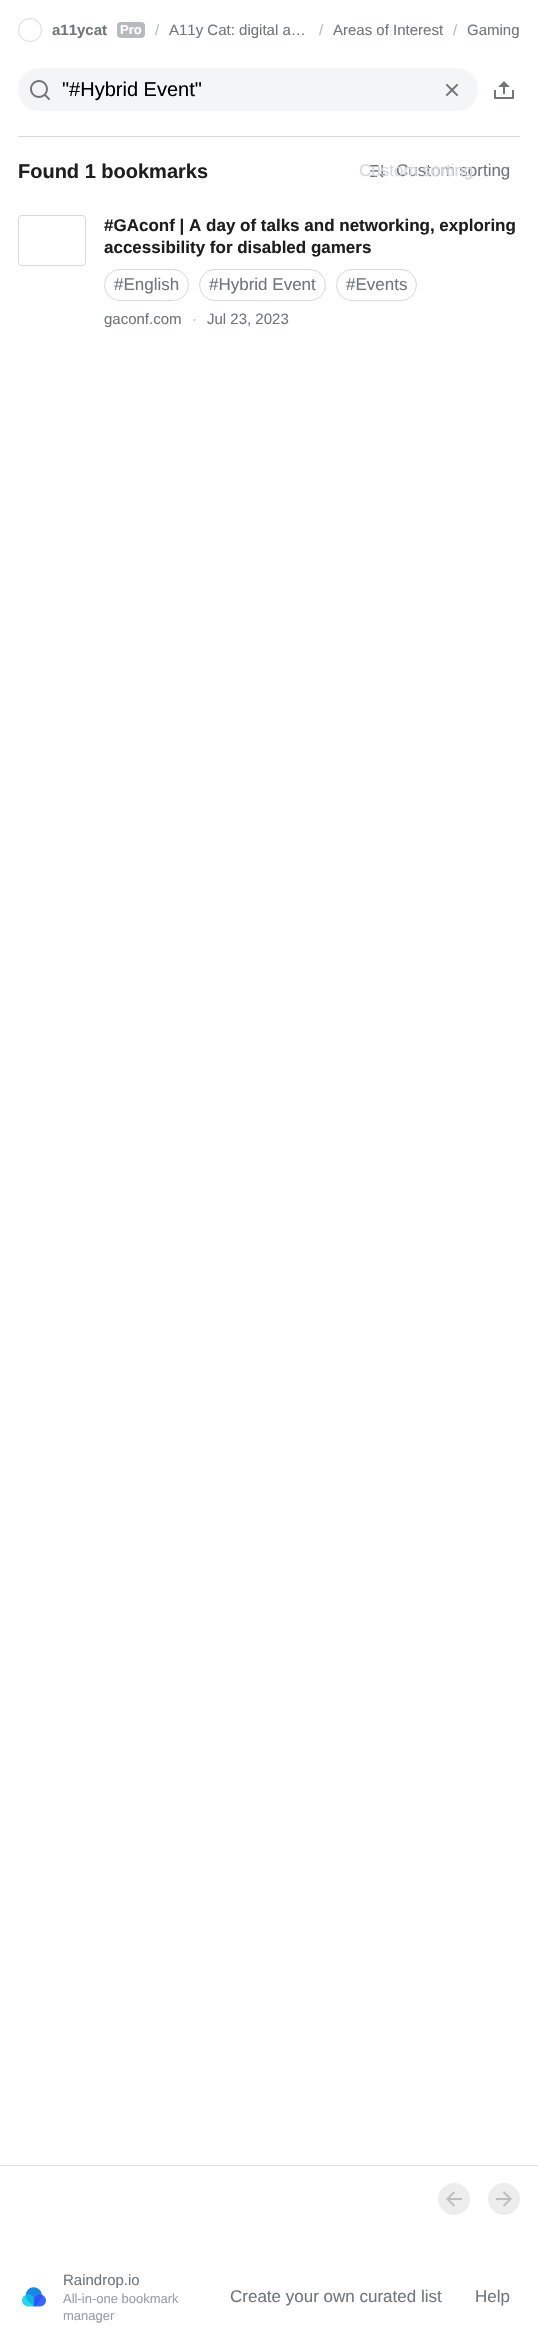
void draw(SkCanvas* c) {
SkPaint p;
p.setAntiAlias(true);
auto F=[&](const char* family, int weight, float size, bool italic = false){SkFontStyle style(weight, SkFontStyle::kNormal_Width,italic ? SkFontStyle::kItalic_Slant : SkFontStyle::kUpright_Slant);SkFont result(fontMgr->matchFamilyStyle(family, style), size);result.setSubpixel(true);return result;};
auto T=[&](const char* s, float x, float y, const SkFont& font){c->drawString(s, x, y, font, p);};
auto R=[&](float x, float y, float w, float h){c->drawRect(SkRect::MakeXYWH(x, y, w, h), p);};
auto Q=[&](float x, float y, float w, float h, float radius){c->drawRoundRect(SkRect::MakeXYWH(x, y, w, h), radius, radius, p);};
auto I=[&](const char* path, float x, float y, float w, float h){auto image = SkImages::DeferredFromEncodedData(SkData::MakeFromFileName(path));c->drawImageRect(image, SkRect::MakeXYWH(x, y, w, h), SkSamplingOptions());};
c->clear(0xffffffff);
p.setStroke(true);
p.setStrokeWidth(1);
p.setColor(0xffd9d9d9);
c->drawCircle(30,30,11.5,p);
auto f1 = F("Liberation Sans",700,15);
p.setStroke(false);
p.setColor(0xff70767a);
T("a11ycat",52,35,f1);
p.setColor(0xffb8bbbd);
Q(117,22,28,16,4);
auto f2 = F("Liberation Sans",700,13);
p.setColor(0xffffffff);
T("Pro",120,34,f2);
auto f3 = F("Liberation Sans",400,15);
p.setColor(0xffb8bbbd);
T("/",155,35,f3);
p.setColor(0xff70767a);
T("A11y Cat: digital a…",169,35,f3);
p.setColor(0xffb8bbbd);
T("/",319,35,f3);
p.setColor(0xff70767a);
T("Areas of Interest",333,35,f3);
p.setColor(0xffb8bbbd);
T("/",453,35,f3);
p.setColor(0xff70767a);
T("Gaming",467,35,f3);
p.setColor(0xfff3f5f6);
Q(18,68,460,43,21.5);
I("1.png",30,80,21,21);
auto f4 = F("Liberation Sans",400,20);
p.setColor(0xff000000);
T("\"#Hybrid Event\"",62,96,f4);
I("2.png",445,83,14,14);
I("3.png",494,81,20,18);
p.setColor(0xffd9d9d9);
R(18,136,502,1);
auto f5 = F("Liberation Sans",700,20);
p.setColor(0xff1e1e1e);
T("Found 1 bookmarks",18,178,f5);
I("4.png",370,165,16,13);
auto f6 = F("Liberation Sans",400,17);
p.setColor(0xff70767a);
T("Custom sorting",396,176,f6);
p.setColor(0xffd6d8d9);
T("Custom sorting",359,176,f6);
p.setStroke(true);
p.setColor(0xffd9d9d9);
c->drawRoundRect(SkRect::MakeXYWH(18.5,215.5,67,50),3.5,3.5,p);
auto f7 = F("Liberation Sans",700,17);
p.setStroke(false);
p.setColor(0xff1e1e1e);
T("#GAconf | A day of talks and networking, exploring",104,231,f7);
T("accessibility for disabled gamers",104,253,f7);
p.setStroke(true);
p.setColor(0xffd9d9d9);
c->drawRoundRect(SkRect::MakeXYWH(104.5,269.5,84,31),15.5,15.5,p);
p.setStroke(false);
p.setColor(0xff70767a);
T("#English",114,290,f6);
p.setStroke(true);
p.setColor(0xffd9d9d9);
c->drawRoundRect(SkRect::MakeXYWH(199.5,269.5,126,31),15.5,15.5,p);
p.setStroke(false);
p.setColor(0xff70767a);
T("#Hybrid Event",209,290,f6);
p.setStroke(true);
p.setColor(0xffd9d9d9);
c->drawRoundRect(SkRect::MakeXYWH(336.5,269.5,80,31),15.5,15.5,p);
p.setStroke(false);
p.setColor(0xff70767a);
T("#Events",346,290,f6);
T("gaconf.com",104,324,f3);
p.setColor(0xffb8bbbd);
T("·",192,324,f3);
p.setColor(0xff70767a);
T("Jul 23, 2023",207,324,f3);
p.setColor(0xffdedede);
R(0,2165,538,1);
p.setColor(0xffededed);
c->drawCircle(454,2199,16,p);
I("5.png",446,2191,16,16);
c->drawCircle(504,2199,16,p);
I("6.png",496,2191,16,16);
I("7.png",22,2287,24,20);
p.setColor(0xff70767a);
T("Raindrop.io",63,2285,f3);
auto f8 = F("Liberation Sans",400,13);
p.setColor(0xff9b9fa2);
T("All-in-one bookmark",63,2303,f8);
T("manager",63,2320,f8);
p.setColor(0xff70767a);
T("Create your own curated list",230,2302,f6);
T("Help",475,2302,f6);
}
